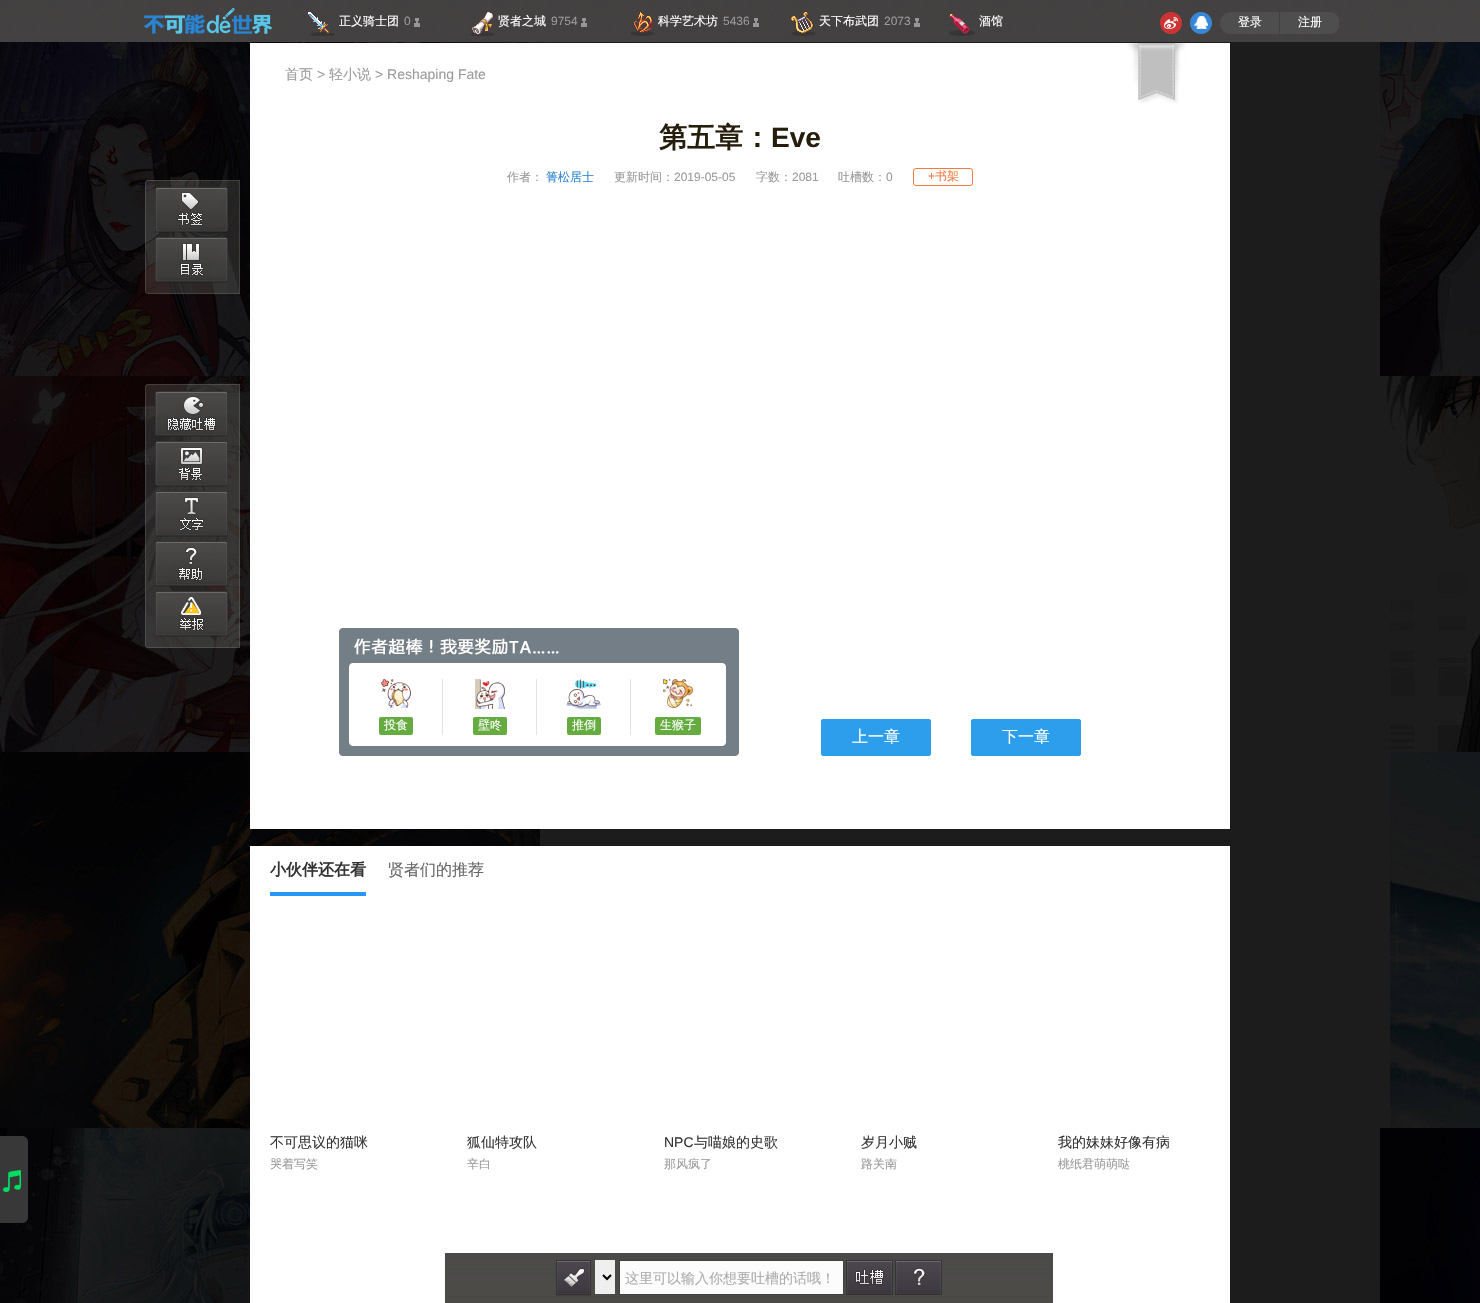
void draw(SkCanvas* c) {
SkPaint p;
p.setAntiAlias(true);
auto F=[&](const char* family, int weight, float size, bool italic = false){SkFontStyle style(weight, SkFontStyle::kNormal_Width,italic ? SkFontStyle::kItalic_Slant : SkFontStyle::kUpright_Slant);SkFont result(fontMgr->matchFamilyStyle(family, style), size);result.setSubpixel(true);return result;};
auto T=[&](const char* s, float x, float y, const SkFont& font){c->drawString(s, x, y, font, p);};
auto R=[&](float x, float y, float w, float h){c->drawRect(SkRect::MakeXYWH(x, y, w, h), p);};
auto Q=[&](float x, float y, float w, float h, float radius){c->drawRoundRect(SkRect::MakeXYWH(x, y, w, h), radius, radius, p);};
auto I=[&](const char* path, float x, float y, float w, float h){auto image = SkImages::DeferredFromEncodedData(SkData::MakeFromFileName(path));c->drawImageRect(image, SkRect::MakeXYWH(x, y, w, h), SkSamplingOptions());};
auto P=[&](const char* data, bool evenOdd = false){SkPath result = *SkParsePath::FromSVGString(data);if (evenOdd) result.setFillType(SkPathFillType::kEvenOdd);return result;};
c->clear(0xffffffff);
I("1.png",0,0,1480,42);
I("2.png",144,8,128,26);
I("3.png",307,11,28,25);
auto f1 = F("WenQuanYi Zen Hei",500,12);
p.setColor(0xffffffff);
T("正义骑士团",339,25,f1);
auto f2 = F("Liberation Sans",400,12);
p.setColor(0xff9a9a9a);
T("0",404,25,f2);
I("4.png",414,18,6,9);
I("5.png",470,11,24,25);
p.setColor(0xffffffff);
T("贤者之城",498,25,f1);
p.setColor(0xff9a9a9a);
T("9754",551,25,f2);
I("6.png",581,18,6,9);
I("7.png",630,11,24,25);
p.setColor(0xffffffff);
T("科学艺术坊",658,25,f1);
p.setColor(0xff9a9a9a);
T("5436",723,25,f2);
I("8.png",753,18,6,9);
I("9.png",790,11,25,25);
p.setColor(0xffffffff);
T("天下布武团",819,25,f1);
p.setColor(0xff9a9a9a);
T("2073",884,25,f2);
I("4.png",914,18,6,9);
I("10.png",949,13,26,23);
p.setColor(0xffffffff);
T("酒馆",979,25,f1);
I("11.png",1160,12,22,22);
I("12.png",1190,12,22,22);
p.setColor(0xff4e4e4e);
Q(1220,12,120,22,11);
p.setColor(0xff414141);
R(1279,12,1,22);
p.setColor(0xffffffff);
T("登录",1238,26,f1);
c->save();
c->clipPath(P("M1231 12h98c6 0 11 5 11 11c0 6-5 11-11 11h-98c-6 0-11-5-11-11c0-6 5-11 11-11z"),true);
p.setColor(0xff414141);
R(1339,12,1,22);
c->restore();
p.setColor(0xffffffff);
T("注册",1298,26,f1);
I("27.png",0,42,1480,1261);
p.setColor(0x1fffffed);
c->drawPath(P("M148 180h92v114h-92c-1.5 0-3-1.5-3-3v-108c0-1.5 1.5-3 3-3z"),p);
p.setStroke(true);
p.setStrokeWidth(1);
p.setColor(0x1fffffff);
c->drawPath(P("M148 180.5h91.5v113h-91.5c-1.5 0-2.5-1-2.5-2.5v-108c0-1.5 1-2.5 2.5-2.5z"),p);
I("13.png",155,187,73,46);
I("14.png",177,192,26,34);
I("15.png",155,237,73,46);
I("16.png",180,243,24,33);
p.setStroke(false);
p.setColor(0x1fffffed);
c->drawPath(P("M148 384h92v264h-92c-1.5 0-3-1.5-3-3v-258c0-1.5 1.5-3 3-3z"),p);
p.setStroke(true);
p.setColor(0x1fffffff);
c->drawPath(P("M148 384.5h91.5v263h-91.5c-1.5 0-2.5-1-2.5-2.5v-258c0-1.5 1-2.5 2.5-2.5z"),p);
I("17.png",155,391,73,46);
I("18.png",167,396,49,35);
I("19.png",155,441,73,46);
I("20.png",178,447,25,34);
I("21.png",155,491,73,46);
I("22.png",179,497,25,34);
I("23.png",155,541,73,46);
I("24.png",178,547,25,34);
I("25.png",155,591,73,46);
I("26.png",179,597,25,34);
p.setStroke(false);
p.setColor(0xffffffff);
R(250,43,980,786);
auto f3 = F("WenQuanYi Zen Hei",500,14);
p.setColor(0xff9a9a9a);
T("首页",285,79,f3);
auto f4 = F("Liberation Sans",400,14);
T(">",317,79,f4);
T("轻小说",329,79,f3);
T("> Reshaping Fate",375,79,f4);
auto f5 = F("WenQuanYi Zen Hei",700,28);
p.setColor(0xff261d0d);
T("第五章：",659,147,f5);
auto f6 = F("Liberation Sans",700,28);
T("Eve",771,147,f6);
p.setColor(0xff9a9a9a);
T("作者：",507,181,f1);
p.setColor(0xff2984d0);
T("箐松居士",546,181,f1);
p.setColor(0xff9a9a9a);
T("更新时间：",614,181,f1);
T("2019-05-05",674,181,f2);
T("字数：",756,181,f1);
T("2081",792,181,f2);
T("吐槽数：",838,181,f1);
T("0",886,181,f2);
p.setStroke(true);
p.setColor(0xfff47b40);
c->drawRoundRect(SkRect::MakeXYWH(913.5,168.5,59,17),2.5,2.5,p);
p.setStroke(false);
T("+",928,180,f2);
T("书架",935,180,f1);
I("28.png",1127,43,59,60);
I("29.png",339,628,400,128);
p.setColor(0xffe3e3e3);
R(442,679,1,56);
I("30.png",381,679,30,29);
p.setColor(0xff65ab3f);
Q(379,717,34,18,2);
p.setColor(0xffffffff);
T("投食",384,729,f1);
p.setColor(0xffe3e3e3);
R(536,679,1,56);
I("31.png",475,679,30,30);
p.setColor(0xff65ab3f);
Q(473,717,34,18,2);
p.setColor(0xffffffff);
T("壁咚",478,729,f1);
p.setColor(0xffe3e3e3);
R(630,679,1,56);
I("32.png",566,679,35,30);
p.setColor(0xff65ab3f);
Q(567,717,34,18,2);
p.setColor(0xffffffff);
T("推倒",572,729,f1);
I("33.png",663,679,30,29);
p.setColor(0xff65ab3f);
Q(655,717,46,18,2);
p.setColor(0xffffffff);
T("生猴子",660,729,f1);
I("34.png",821,719,110,37);
p.setColor(0xff2d9eec);
Q(821,719,110,37,3);
auto f7 = F("WenQuanYi Zen Hei",500,16);
p.setColor(0xffffffff);
T("上一章",852,742,f7);
I("34.png",971,719,110,37);
p.setColor(0xff2d9eec);
Q(971,719,110,37,3);
p.setColor(0xffffffff);
T("下一章",1002,742,f7);
R(250,846,980,457);
auto f8 = F("WenQuanYi Zen Hei",700,16);
p.setColor(0xff333333);
T("小伙伴还在看",270,875,f8);
p.setColor(0xff2797f7);
R(270,892,96,4);
p.setColor(0xff666666);
T("贤者们的推荐",388,875,f7);
p.setColor(0xff333333);
T("不可思议的猫咪",270,1147,f3);
p.setColor(0xff9a9a9a);
T("哭着写笑",270,1168,f1);
p.setColor(0xff333333);
T("狐仙特攻队",467,1147,f3);
p.setColor(0xff9a9a9a);
T("辛白",467,1168,f1);
p.setColor(0xff333333);
T("NPC",664,1147,f4);
T("与喵娘的史歌",694,1147,f3);
p.setColor(0xff9a9a9a);
T("那风疯了",664,1168,f1);
p.setColor(0xff333333);
T("岁月小贼",861,1147,f3);
p.setColor(0xff9a9a9a);
T("路关南",861,1168,f1);
p.setColor(0xff333333);
T("我的妹妹好像有病",1058,1147,f3);
p.setColor(0xff9a9a9a);
T("桃纸君萌萌哒",1058,1168,f1);
I("35.png",0,1136,28,87);
I("36.png",3,1170,18,22);
I("37.png",445,1253,608,50);
I("38.png",556,1260,35,36);
I("39.png",563,1268,22,20);
p.setColor(0xffefefef);
R(595,1260,20,34);
p.setStroke(true);
p.setStrokeWidth(2);
p.setColor(0xff000000);
c->drawPath(P("M603 1275l4 4l4-4"),p);
p.setStroke(false);
p.setColor(0xfffcfcfc);
c->drawRect(SkRect::MakeXYWH(619.5,1260.5,224,34),p);
p.setStroke(true);
p.setStrokeWidth(1);
p.setColor(0xff404040);
c->drawRect(SkRect::MakeXYWH(619.5,1260.5,224,34),p);
p.setStroke(false);
p.setColor(0xffadacac);
T("这里可以输入你想要吐槽的话哦！",625,1283,f3);
I("40.png",846,1260,47,35);
I("41.png",895,1260,47,35);
}
